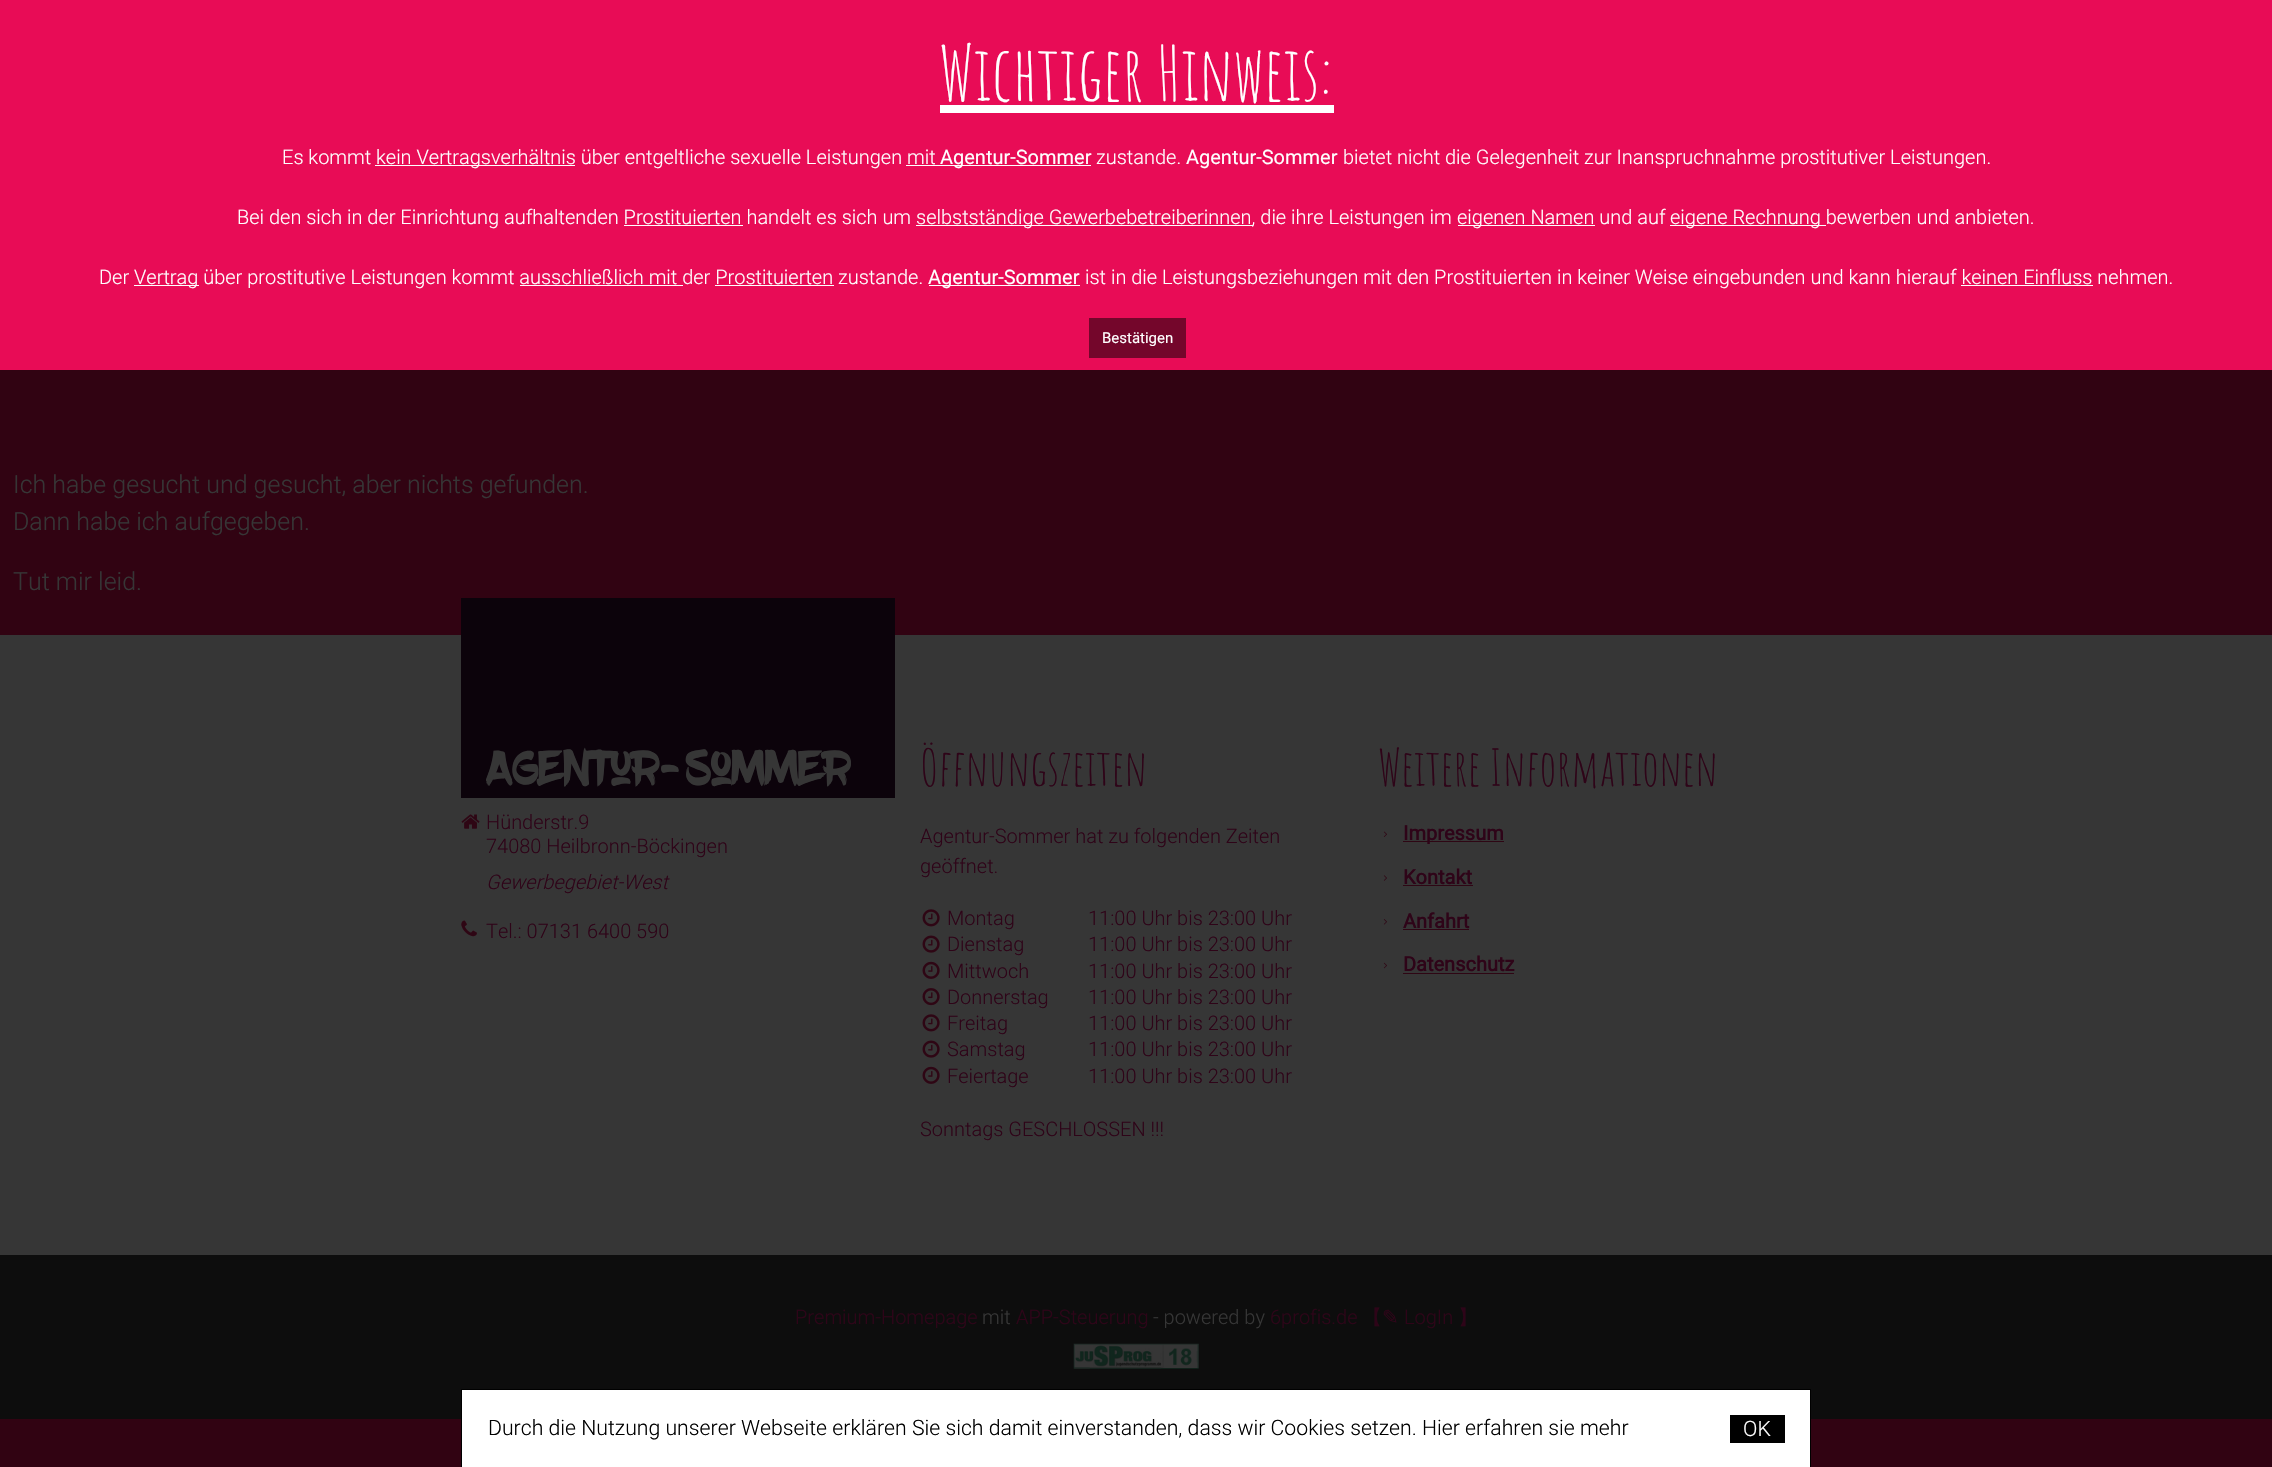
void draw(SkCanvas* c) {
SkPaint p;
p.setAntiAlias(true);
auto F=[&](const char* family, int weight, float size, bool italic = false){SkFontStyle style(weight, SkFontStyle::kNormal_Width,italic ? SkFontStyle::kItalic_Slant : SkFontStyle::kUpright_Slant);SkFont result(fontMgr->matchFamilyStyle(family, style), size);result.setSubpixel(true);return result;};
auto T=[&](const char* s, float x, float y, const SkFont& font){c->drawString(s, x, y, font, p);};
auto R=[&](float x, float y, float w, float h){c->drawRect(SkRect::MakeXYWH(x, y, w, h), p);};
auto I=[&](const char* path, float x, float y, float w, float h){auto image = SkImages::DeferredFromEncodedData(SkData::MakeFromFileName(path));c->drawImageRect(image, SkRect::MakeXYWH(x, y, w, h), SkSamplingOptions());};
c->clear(0xff310312);
p.setColor(0xffe80c56);
R(0,0,2272,370);
auto f1 = F("Amatic SC",400,75);
p.setColor(0xffffffff);
T("Wichtiger Hinweis:",939,101,f1);
R(940,105,394,8);
auto f2 = F("Roboto",300,20);
T("Es kommt",282,164,f2);
R(375,165,200,1);
T("kein Vertragsverhältnis über entgeltliche sexuelle Leistungen mit",376,164,f2);
R(906,165,185,1);
auto f3 = F("Roboto",400,20);
T("Agentur-Sommer",940,164,f3);
T("zustande.",1096,164,f2);
T("Agentur-Sommer",1186,164,f3);
T("bietet nicht die Gelegenheit zur Inanspruchnahme prostitutiver Leistungen.",1343,164,f2);
T("Bei den sich in der Einrichtung aufhaltenden Prostituierten handelt es sich um",237,224,f2);
R(916,225,337,1);
T("selbstständige Gewerbebetreiberinnen, die ihre Leistungen im",916,224,f2);
R(1458,225,137,1);
T("eigenen Namen und auf",1457,224,f2);
R(1670,225,156,1);
T("eigene Rechnung bewerben und anbieten.",1670,224,f2);
R(624,225,119,1);
T("Der",99,284,f2);
R(134,285,65,1);
T("Vertrag über prostitutive Leistungen kommt ausschließlich mit der Prostituierten zustande.",134,284,f2);
R(929,285,151,1);
T("Agentur-Sommer",928,284,f3);
T("ist in die Leistungsbeziehungen mit den Prostituierten in keiner Weise eingebunden und kann hierauf keinen Einfluss nehmen.",1085,284,f2);
R(520,285,163,1);
R(715,285,119,1);
R(1961,285,132,1);
p.setColor(0xff74062b);
R(1089,318,97,40);
auto f4 = F("Roboto",400,15);
p.setColor(0xffffffff);
T("Bestätigen",1102,343,f4);
auto f5 = F("Roboto",300,25);
p.setColor(0xff363636);
T("Ich habe gesucht und gesucht, aber nichts gefunden.",13,493,f5);
T("Dann habe ich aufgegeben.",13,530,f5);
T("Tut mir leid.",13,590,f5);
R(0,635,2272,620);
p.setColor(0xff0c030b);
R(461,598,434,200);
auto f6 = F("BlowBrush",400,50);
p.setColor(0xff363636);
T("Agentur-Sommer",486,785,f6);
I("1.png",461,814,19,15);
p.setColor(0xff2e0418);
T("Hünderstr.9",486,829,f2);
T("74080 Heilbronn-Böckingen",486,853,f2);
auto f7 = F("Roboto",300,20,true);
T("Gewerbegebiet-West",486,889,f7);
I("2.png",461,920,16,17);
T("Tel.: 07131 6400 590",486,938,f2);
auto f8 = F("Amatic SC",400,50);
T("Öffnungszeiten",920,786,f8);
T("Agentur-Sommer hat zu folgenden Zeiten",920,843,f2);
T("geöffnet.",920,873,f2);
I("3.png",922,909,18,18);
T("Montag",947,925,f2);
T("11:00 Uhr bis 23:00 Uhr",1088,925,f2);
I("4.png",922,935,18,18);
T("Dienstag",947,951,f2);
T("11:00 Uhr bis 23:00 Uhr",1088,951,f2);
I("5.png",922,961,18,18);
T("Mittwoch",947,978,f2);
T("11:00 Uhr bis 23:00 Uhr",1088,978,f2);
I("6.png",922,988,18,18);
T("Donnerstag",947,1004,f2);
T("11:00 Uhr bis 23:00 Uhr",1088,1004,f2);
I("3.png",922,1014,18,18);
T("Freitag",947,1030,f2);
T("11:00 Uhr bis 23:00 Uhr",1088,1030,f2);
I("4.png",922,1040,18,18);
T("Samstag",947,1056,f2);
T("11:00 Uhr bis 23:00 Uhr",1088,1056,f2);
I("5.png",922,1066,18,18);
T("Feiertage",947,1083,f2);
T("11:00 Uhr bis 23:00 Uhr",1088,1083,f2);
T("Sonntags GESCHLOSSEN !!!",920,1136,f2);
T("Weitere Informationen",1378,786,f8);
I("7.png",1383,831,4,6);
p.setColor(0xff2e0614);
R(1403,841,101,1);
auto f9 = F("Roboto",700,20);
p.setColor(0xff2e0418);
T("Impressum",1403,840,f9);
I("8.png",1383,875,4,6);
T("Kontakt",1403,884,f9);
p.setColor(0xff2e0614);
R(1403,885,70,1);
I("9.png",1383,919,4,6);
p.setColor(0xff2e0418);
T("Anfahrt",1403,928,f9);
p.setColor(0xff2e0614);
R(1403,929,66,1);
I("10.png",1383,962,4,7);
p.setColor(0xff2e0418);
T("Datenschutz",1403,971,f9);
p.setColor(0xff2e0614);
R(1403,973,111,1);
p.setColor(0xff0d0d0d);
R(0,1255,2272,164);
p.setColor(0xff2e0418);
T("Premium-Homepage",795,1324,f2);
p.setColor(0xff363636);
T("mit",982,1324,f2);
p.setColor(0xff2e0418);
T("APP-Steuerung",1016,1324,f2);
p.setColor(0xff363636);
T("- powered by",1153,1324,f2);
p.setColor(0xff2e0418);
T("6profis.de",1270,1324,f2);
auto f10 = F("WenQuanYi Zen Hei",500,20);
T("【",1362,1324,f10);
auto f11 = F("DejaVu Sans",400,20);
T("✎",1382,1324,f11);
T("LogIn",1404,1324,f2);
T("】",1458,1324,f10);
I("11.png",1073,1343,126,26);
p.setColor(0xffffffff);
R(462,1390,1348,77);
p.setColor(0xff000000);
R(461,1389,1350,1);
R(1810,1389,1,78);
R(461,1389,1,78);
auto f12 = F("Roboto",300,21.25);
T("Durch die Nutzung unserer Webseite erklären Sie sich damit einverstanden, dass wir Cookies setzen. Hier erfahren sie mehr",488,1435,f12);
R(1730,1415,55,28);
p.setColor(0xffffffff);
T("OK",1743,1436,f12);
}
